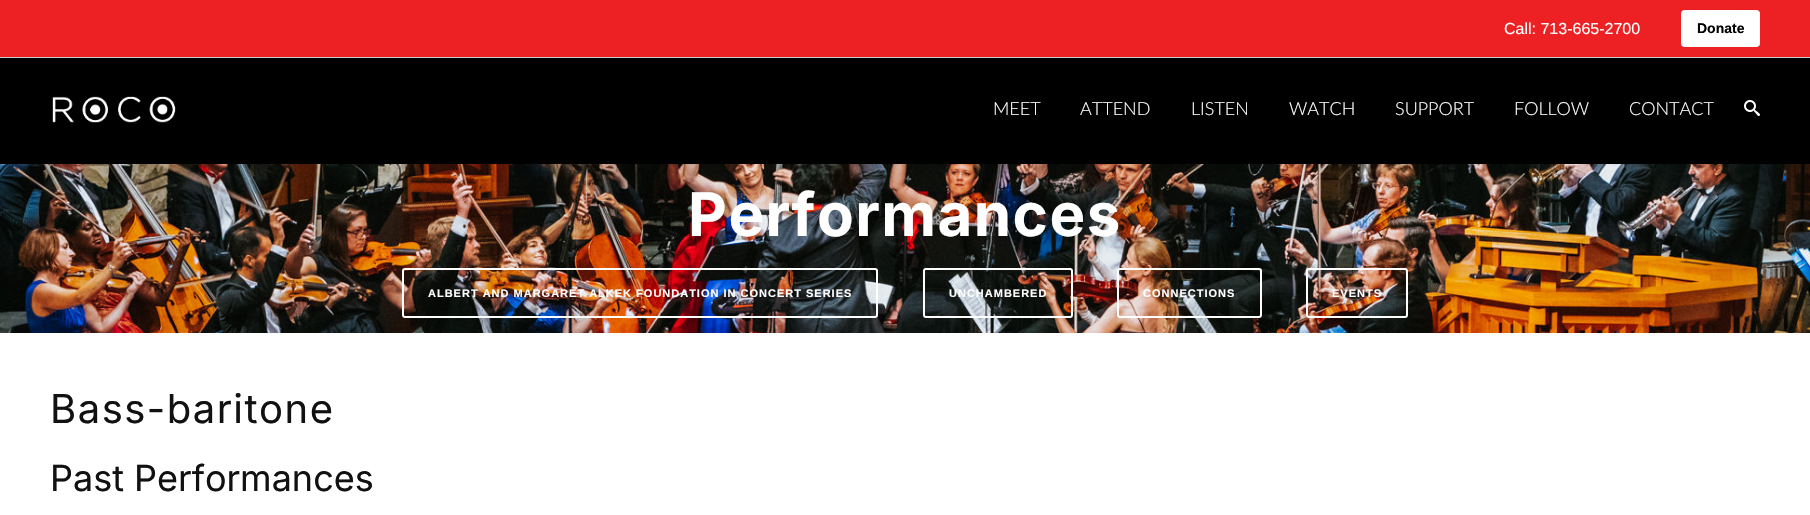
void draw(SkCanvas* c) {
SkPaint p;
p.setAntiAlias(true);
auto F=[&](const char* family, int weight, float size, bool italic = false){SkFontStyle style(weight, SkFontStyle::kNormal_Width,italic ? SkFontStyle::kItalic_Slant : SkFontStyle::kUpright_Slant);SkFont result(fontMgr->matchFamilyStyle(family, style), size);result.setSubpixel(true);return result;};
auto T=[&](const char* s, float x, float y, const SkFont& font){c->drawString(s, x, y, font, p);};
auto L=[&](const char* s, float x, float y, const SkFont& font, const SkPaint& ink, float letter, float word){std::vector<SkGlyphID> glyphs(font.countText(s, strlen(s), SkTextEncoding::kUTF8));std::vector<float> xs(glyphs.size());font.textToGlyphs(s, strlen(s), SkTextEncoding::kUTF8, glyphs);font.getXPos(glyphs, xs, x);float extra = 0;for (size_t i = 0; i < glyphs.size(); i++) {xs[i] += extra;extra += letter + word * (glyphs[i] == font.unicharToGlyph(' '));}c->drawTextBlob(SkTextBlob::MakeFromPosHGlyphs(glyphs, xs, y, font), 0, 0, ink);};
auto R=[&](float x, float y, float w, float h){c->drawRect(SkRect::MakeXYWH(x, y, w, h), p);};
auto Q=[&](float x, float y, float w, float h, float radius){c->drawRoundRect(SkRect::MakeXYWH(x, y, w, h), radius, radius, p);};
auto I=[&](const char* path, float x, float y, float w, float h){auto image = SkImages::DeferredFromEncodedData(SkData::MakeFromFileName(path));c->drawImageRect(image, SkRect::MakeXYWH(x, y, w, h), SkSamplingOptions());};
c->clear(0xffffffff);
p.setColor(0xffed2124);
R(0,0,1810,57);
p.setColor(0xffcccccc);
R(0,57,1810,1);
auto f1 = F("Liberation Sans",400,16);
p.setColor(0xffffffff);
T("Call: 713-665-2700",1504,34,f1);
Q(1681,10,79,37,4);
auto f2 = F("Liberation Sans",700,14);
p.setColor(0xff000000);
T("Donate",1697,33,f2);
R(0,58,1810,106);
I("1.png",52,96,124,27);
auto f3 = F("Lato",300,18);
p.setColor(0xffffffff);
T("MEET",993,115,f3);
T("ATTEND",1080,115,f3);
T("LISTEN",1191,115,f3);
T("WATCH",1289,115,f3);
T("SUPPORT",1395,115,f3);
T("FOLLOW",1514,115,f3);
T("CONTACT",1629,115,f3);
I("2.png",1744,100,16,16);
I("3.png",0,164,1810,169);
auto f4 = F("Inter",700,60);
L("Performances",688,236,f4,p,1.5,0);
p.setStroke(true);
p.setStrokeWidth(2);
c->drawRoundRect(SkRect::MakeXYWH(403,269,474,48),2,2,p);
auto f5 = F("Liberation Sans",700,11);
p.setStroke(false);
L("ALBERT AND MARGARET ALKEK FOUNDATION IN CONCERT SERIES",428,297,f5,p,1,0);
p.setStroke(true);
c->drawRoundRect(SkRect::MakeXYWH(924,269,148,48),2,2,p);
p.setStroke(false);
L("UNCHAMBERED",949,297,f5,p,1,0);
p.setStroke(true);
c->drawRoundRect(SkRect::MakeXYWH(1118,269,143,48),2,2,p);
p.setStroke(false);
L("CONNECTIONS",1143,297,f5,p,1,0);
p.setStroke(true);
c->drawRoundRect(SkRect::MakeXYWH(1307,269,100,48),2,2,p);
p.setStroke(false);
L("EVENTS",1332,297,f5,p,1,0);
auto f6 = F("Inter",400,40);
p.setColor(0xff111111);
L("Bass-baritone",50,423,f6,p,1.5,0);
auto f7 = F("Inter",400,36);
T("Past Performances",50,491,f7);
}
